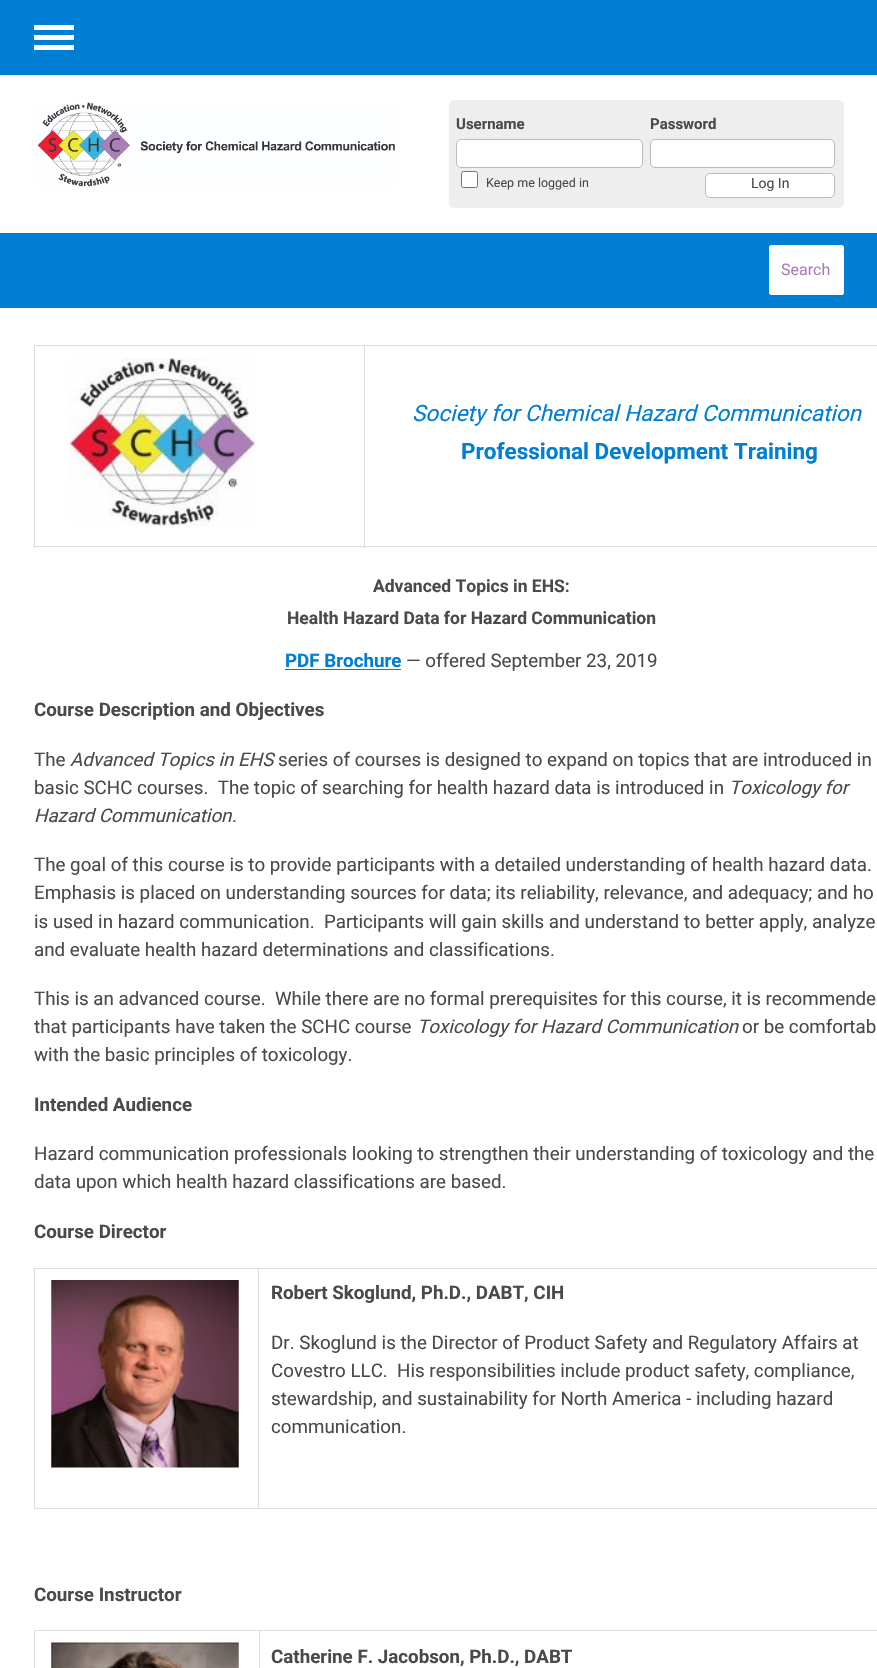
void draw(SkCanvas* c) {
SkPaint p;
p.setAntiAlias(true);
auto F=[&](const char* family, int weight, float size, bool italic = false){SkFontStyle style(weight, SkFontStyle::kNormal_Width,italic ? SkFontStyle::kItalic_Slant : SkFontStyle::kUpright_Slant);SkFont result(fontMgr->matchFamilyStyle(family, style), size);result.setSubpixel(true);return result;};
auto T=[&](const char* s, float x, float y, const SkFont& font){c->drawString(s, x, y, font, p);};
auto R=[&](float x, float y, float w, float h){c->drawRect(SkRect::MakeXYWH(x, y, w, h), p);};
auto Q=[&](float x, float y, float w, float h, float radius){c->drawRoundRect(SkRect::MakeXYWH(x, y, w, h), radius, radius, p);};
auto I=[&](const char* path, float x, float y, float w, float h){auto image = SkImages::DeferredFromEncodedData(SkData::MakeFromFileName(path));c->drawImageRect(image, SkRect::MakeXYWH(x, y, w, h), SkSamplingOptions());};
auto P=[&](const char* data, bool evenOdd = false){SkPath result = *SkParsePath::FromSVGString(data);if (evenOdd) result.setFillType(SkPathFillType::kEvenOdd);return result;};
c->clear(0xffffffff);
p.setColor(0xff007ed4);
R(0,0,877,75);
p.setColor(0xffffffff);
c->drawPath(P("M34 25h40v5h-40zm0 10h40v5h-40zm0 10h40v5h-40z"),p);
I("1.png",37,102,358,85);
p.setColor(0xffeeeeee);
Q(449,100,395,108,5);
auto f1 = F("Roboto",700,15);
p.setColor(0xff4a4a4a);
T("Username",456,129,f1);
p.setColor(0xffffffff);
c->drawRoundRect(SkRect::MakeXYWH(456.5,139.5,186,28),4.5,4.5,p);
p.setStroke(true);
p.setStrokeWidth(1);
p.setColor(0xffbbbbbb);
c->drawRoundRect(SkRect::MakeXYWH(456.5,139.5,186,28),4.5,4.5,p);
p.setStroke(false);
p.setColor(0xff4a4a4a);
T("Password",650,129,f1);
p.setColor(0xffffffff);
c->drawRoundRect(SkRect::MakeXYWH(650.5,139.5,184,28),4.5,4.5,p);
p.setStroke(true);
p.setColor(0xffbbbbbb);
c->drawRoundRect(SkRect::MakeXYWH(650.5,139.5,184,28),4.5,4.5,p);
p.setStroke(false);
p.setColor(0xffffffff);
c->drawRoundRect(SkRect::MakeXYWH(461.5,171.5,16,16),2,2,p);
p.setStroke(true);
p.setColor(0xff767676);
c->drawRoundRect(SkRect::MakeXYWH(461.5,171.5,16,16),2,2,p);
auto f2 = F("Roboto",400,12.5);
p.setStroke(false);
p.setColor(0xff4a4a4a);
T("Keep me logged in",486,187,f2);
p.setColor(0xffffffff);
c->drawRoundRect(SkRect::MakeXYWH(705.5,173.5,129,24),4.5,4.5,p);
p.setStroke(true);
p.setColor(0xffbbbbbb);
c->drawRoundRect(SkRect::MakeXYWH(705.5,173.5,129,24),4.5,4.5,p);
auto f3 = F("Roboto",400,14);
p.setStroke(false);
p.setColor(0xff4a4a4a);
T("Log In",751,188,f3);
p.setColor(0xff007ed4);
R(0,233,877,75);
p.setColor(0xffffffff);
Q(769,245,75,50,2.5);
auto f4 = F("Roboto",400,16);
p.setColor(0xffa87db4);
T("Search",781,275,f4);
p.setColor(0xffdddddd);
R(364,345,513,1);
R(364,546,513,1);
R(364,345,1,203);
R(34,345,331,1);
R(34,546,331,1);
R(34,345,1,203);
I("2.png",69,357,187,170);
auto f5 = F("Roboto",400,22.5,true);
p.setColor(0xff007ed4);
T("Society for Chemical Hazard Communication",412,421,f5);
auto f6 = F("Roboto",700,22.5);
T("Professional Development Training",461,459,f6);
auto f7 = F("Roboto",700,17.5);
p.setColor(0xff4a4a4a);
T("Advanced Topics in EHS:",373,592,f7);
T("Health Hazard Data for Hazard Communication",287,624,f7);
auto f8 = F("Roboto",700,18.75);
p.setColor(0xff007ed4);
T("PDF Brochure",285,667,f8);
R(285,669,116,1);
auto f9 = F("Roboto",400,18.75);
p.setColor(0xff4a4a4a);
T("— offered September 23, 2019",406,667,f9);
T("Course Description and Objectives",34,716,f8);
T("The",34,766,f9);
auto f10 = F("Roboto",400,18.75,true);
T("Advanced Topics in EHS",70,766,f10);
T("series of courses is designed to expand on topics that are introduced in",278,766,f9);
T("basic SCHC courses.  The topic of searching for health hazard data is introduced in",34,794,f9);
T("Toxicology for",729,794,f10);
T("Hazard Communication",34,822,f10);
T(".",232,822,f9);
T("The goal of this course is to provide participants with a detailed understanding of health hazard data.",34,871,f9);
T("Emphasis is placed on understanding sources for data; its reliability, relevance, and adequacy; and ho",34,899,f9);
T("is used in hazard communication.  Participants will gain skills and understand to better apply, analyze",34,928,f9);
T("and evaluate health hazard determinations and classifications.",34,956,f9);
T("This is an advanced course.  While there are no formal prerequisites for this course, it is recommende",34,1005,f9);
T("that participants have taken the SCHC course",34,1033,f9);
T("Toxicology for Hazard Communication",417,1033,f10);
T("or be comfortab",742,1033,f9);
T("with the basic principles of toxicology.",34,1061,f9);
T("Intended Audience",34,1111,f8);
T("Hazard communication professionals looking to strengthen their understanding of toxicology and the",34,1160,f9);
T("data upon which health hazard classifications are based.",34,1188,f9);
T("Course Director",34,1238,f8);
p.setColor(0xffdddddd);
R(258,1268,619,1);
R(258,1508,619,1);
R(258,1268,1,241);
R(34,1268,225,1);
R(34,1508,225,1);
R(34,1268,1,241);
I("3.png",51,1280,188,188);
p.setColor(0xff4a4a4a);
T("Robert Skoglund, Ph.D., DABT, CIH",271,1299,f8);
T("Dr. Skoglund is the Director of Product Safety and Regulatory Affairs at",271,1349,f9);
T("Covestro LLC.  His responsibilities include product safety, compliance,",271,1377,f9);
T("stewardship, and sustainability for North America - including hazard",271,1405,f9);
T("communication.",271,1433,f9);
T("Course Instructor",34,1601,f8);
p.setColor(0xffdddddd);
R(259,1630,618,1);
R(259,1630,1,38);
R(34,1630,226,1);
R(34,1630,1,38);
I("4.png",51,1642,188,26);
p.setColor(0xff4a4a4a);
T("Catherine F. Jacobson, Ph.D., DABT",271,1663,f8);
}
